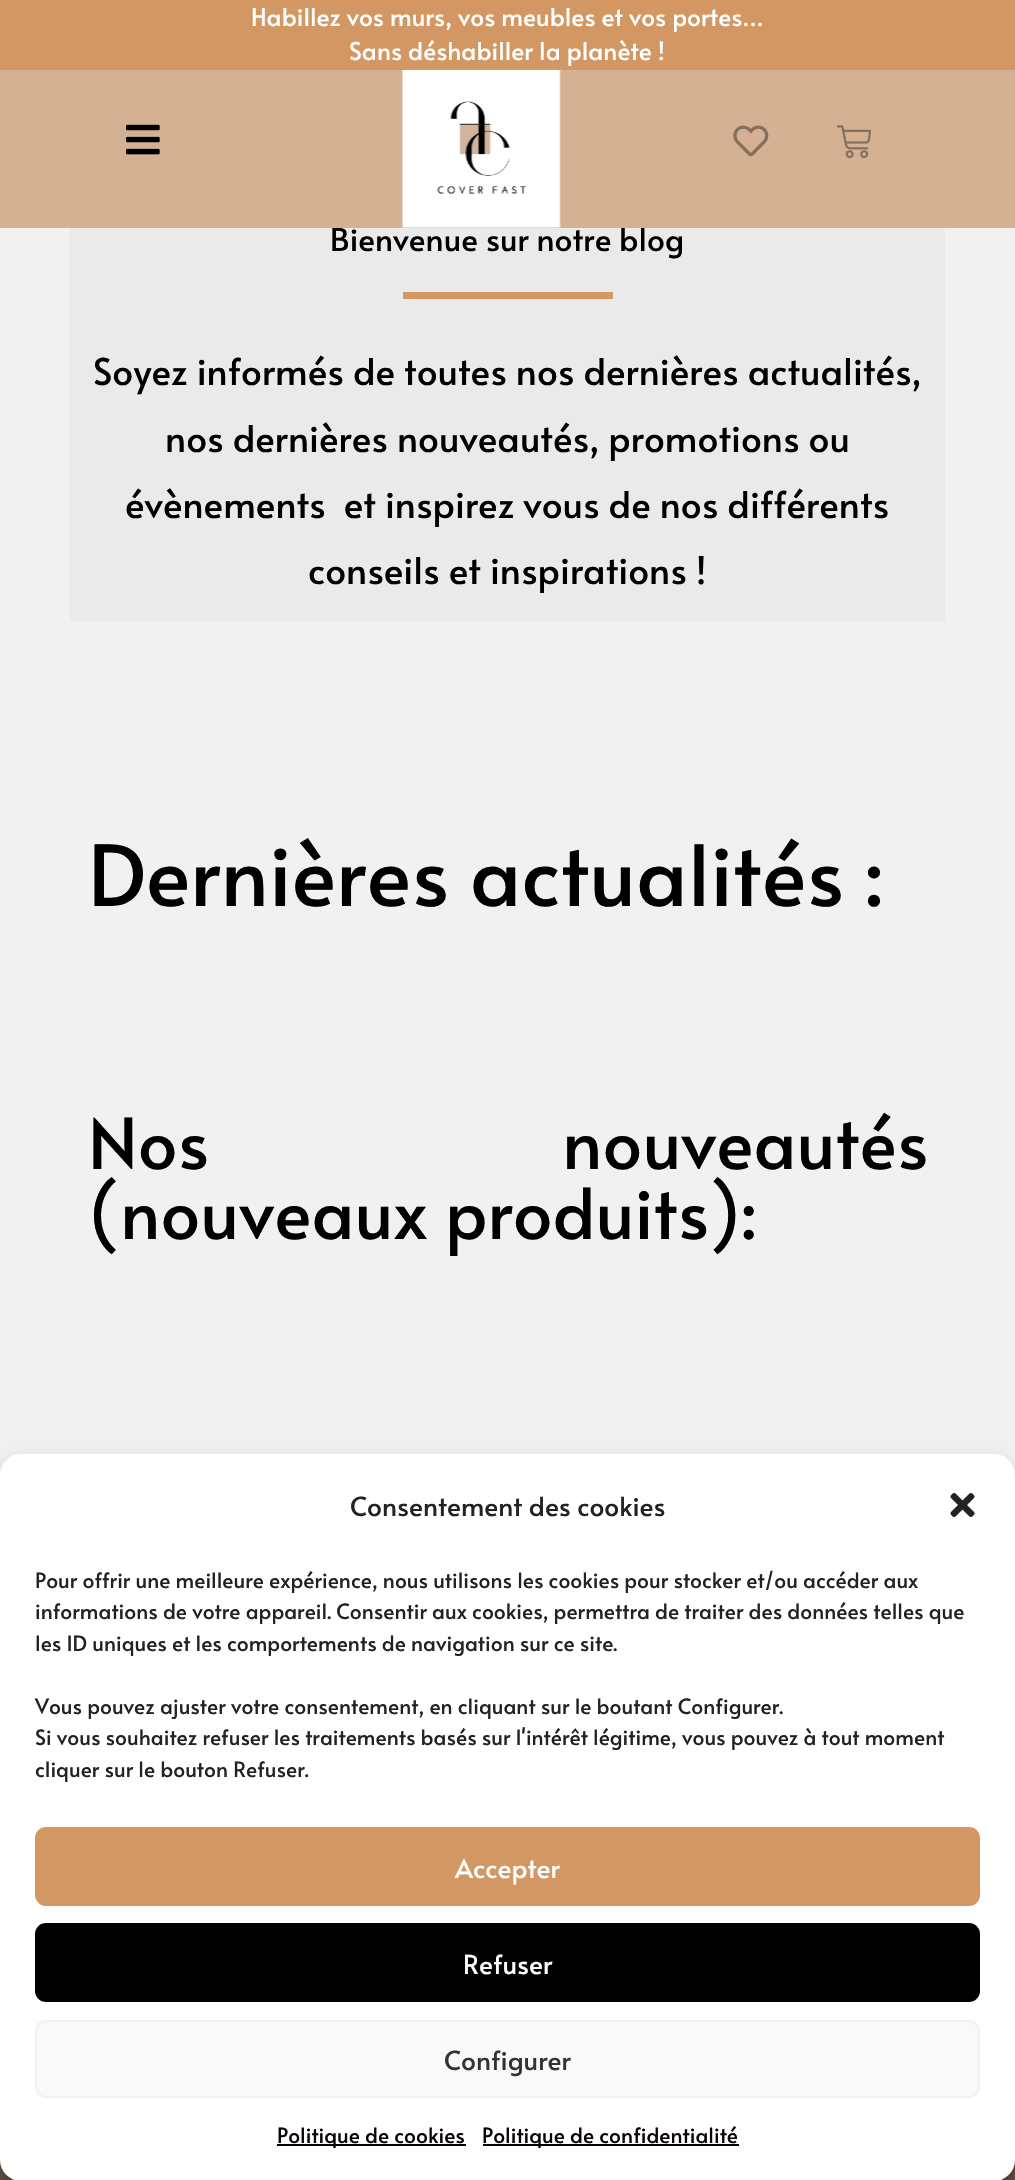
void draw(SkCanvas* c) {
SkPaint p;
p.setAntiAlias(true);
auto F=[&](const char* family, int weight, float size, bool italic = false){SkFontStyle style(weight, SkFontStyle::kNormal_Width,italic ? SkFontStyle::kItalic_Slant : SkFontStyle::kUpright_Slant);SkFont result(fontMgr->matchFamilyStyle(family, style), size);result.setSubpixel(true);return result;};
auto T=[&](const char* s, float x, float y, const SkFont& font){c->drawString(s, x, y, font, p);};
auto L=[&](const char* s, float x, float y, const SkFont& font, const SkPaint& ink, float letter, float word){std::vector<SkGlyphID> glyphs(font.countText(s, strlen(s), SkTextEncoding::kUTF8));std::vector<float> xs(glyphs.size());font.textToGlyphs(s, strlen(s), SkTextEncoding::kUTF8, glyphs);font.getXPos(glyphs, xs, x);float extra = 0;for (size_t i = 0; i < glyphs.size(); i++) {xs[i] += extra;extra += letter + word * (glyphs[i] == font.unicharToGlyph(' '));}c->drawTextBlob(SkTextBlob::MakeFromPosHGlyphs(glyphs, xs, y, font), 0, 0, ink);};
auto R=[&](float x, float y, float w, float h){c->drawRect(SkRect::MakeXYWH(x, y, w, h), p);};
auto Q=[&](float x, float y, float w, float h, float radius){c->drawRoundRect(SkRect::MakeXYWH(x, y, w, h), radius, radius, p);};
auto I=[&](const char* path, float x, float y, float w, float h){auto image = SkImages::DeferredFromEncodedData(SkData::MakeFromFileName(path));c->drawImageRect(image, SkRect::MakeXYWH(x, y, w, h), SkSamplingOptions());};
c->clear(0xfff1f1f1);
p.setColor(0xffd29763);
R(0,0,1015,70);
auto f1 = F("Alata",400,24.5);
p.setColor(0xffffffff);
T("Habillez vos murs, vos meubles et vos portes…",251,26,f1);
T("Sans déshabiller la planète !",349,60,f1);
p.setColor(0xffeaeaea);
R(70,228,875,393);
auto f2 = F("Alata",400,31.5);
p.setColor(0xff000000);
T("Bienvenue sur notre blog",330,251,f2);
p.setColor(0xffd3b192);
R(0,70,1015,158);
I("1.png",126,124,34,31);
I("2.png",402,70,159,158);
I("3.png",733,125,36,32);
I("4.png",836,125,36,34);
p.setColor(0xffd29763);
R(403,292,210,7);
auto f3 = F("Alata",400,36.75);
p.setColor(0xff000000);
T("Soyez informés de toutes nos dernières actualités,",93,385,f3);
T("nos dernières nouveautés, promotions ou",165,452,f3);
T("évènements  et inspirez vous de nos différents",125,518,f3);
T("conseils et inspirations !",308,584,f3);
auto f4 = F("Alata",400,84);
T("Dernières actualités :",88,906,f4);
auto f5 = F("Alata",400,70);
L("Nos nouveautés",88,1169,f5,p,0,336);
T("(nouveaux produits):",88,1239,f5);
p.setColor(0xff6c5a4c);
R(0,2160,1015,20);
p.setColor(0x3b000000);
p.setMaskFilter(SkMaskFilter::MakeBlur(kNormal_SkBlurStyle, 5));
c->drawRoundRect(SkRect::MakeXYWH(0,1465,1015,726),21,21,p);
p.setMaskFilter(nullptr);
p.setColor(0x30000000);
p.setMaskFilter(SkMaskFilter::MakeBlur(kNormal_SkBlurStyle, 17.5));
c->drawRoundRect(SkRect::MakeXYWH(0,1472,1015,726),21,21,p);
p.setMaskFilter(nullptr);
p.setColor(0xffffffff);
Q(0,1454,1015,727,21);
auto f6 = F("Alata",400,26.25);
p.setColor(0xff222222);
T("Consentement des cookies",350,1516,f6);
I("5.png",950,1493,25,24);
auto f7 = F("Alata",400,21);
T("Pour offrir une meilleure expérience, nous utilisons les cookies pour stocker et/ou accéder aux",35,1588,f7);
T("informations de votre appareil. Consentir aux cookies, permettra de traiter des données telles que",35,1619,f7);
T("les ID uniques et les comportements de navigation sur ce site.",35,1651,f7);
T("Vous pouvez ajuster votre consentement, en cliquant sur le boutant Configurer.",35,1714,f7);
T("Si vous souhaitez refuser les traitements basés sur l'intérêt légitime, vous pouvez à tout moment",35,1745,f7);
T("cliquer sur le bouton Refuser.",35,1777,f7);
p.setColor(0xffd29763);
c->drawRoundRect(SkRect::MakeXYWH(36,1828,943,77),10,10,p);
p.setStroke(true);
p.setStrokeWidth(2);
c->drawRoundRect(SkRect::MakeXYWH(36,1828,943,77),10,10,p);
p.setStroke(false);
p.setColor(0xffffffff);
T("Accepter",455,1878,f6);
p.setColor(0xff000000);
c->drawRoundRect(SkRect::MakeXYWH(36,1924,943,77),10,10,p);
p.setStroke(true);
c->drawRoundRect(SkRect::MakeXYWH(36,1924,943,77),10,10,p);
p.setStroke(false);
p.setColor(0xffffffff);
T("Refuser",463,1974,f6);
p.setColor(0xfff9f9f9);
c->drawRoundRect(SkRect::MakeXYWH(36,2021,943,76),10,10,p);
p.setStroke(true);
p.setColor(0xfff2f2f2);
c->drawRoundRect(SkRect::MakeXYWH(36,2021,943,76),10,10,p);
p.setStroke(false);
p.setColor(0xff333333);
T("Configurer",444,2070,f6);
p.setColor(0xff0a0303);
R(277,2144,189,2);
T("Politique de cookies",277,2143,f7);
R(483,2144,256,2);
T("Politique de confidentialité",482,2143,f7);
}
